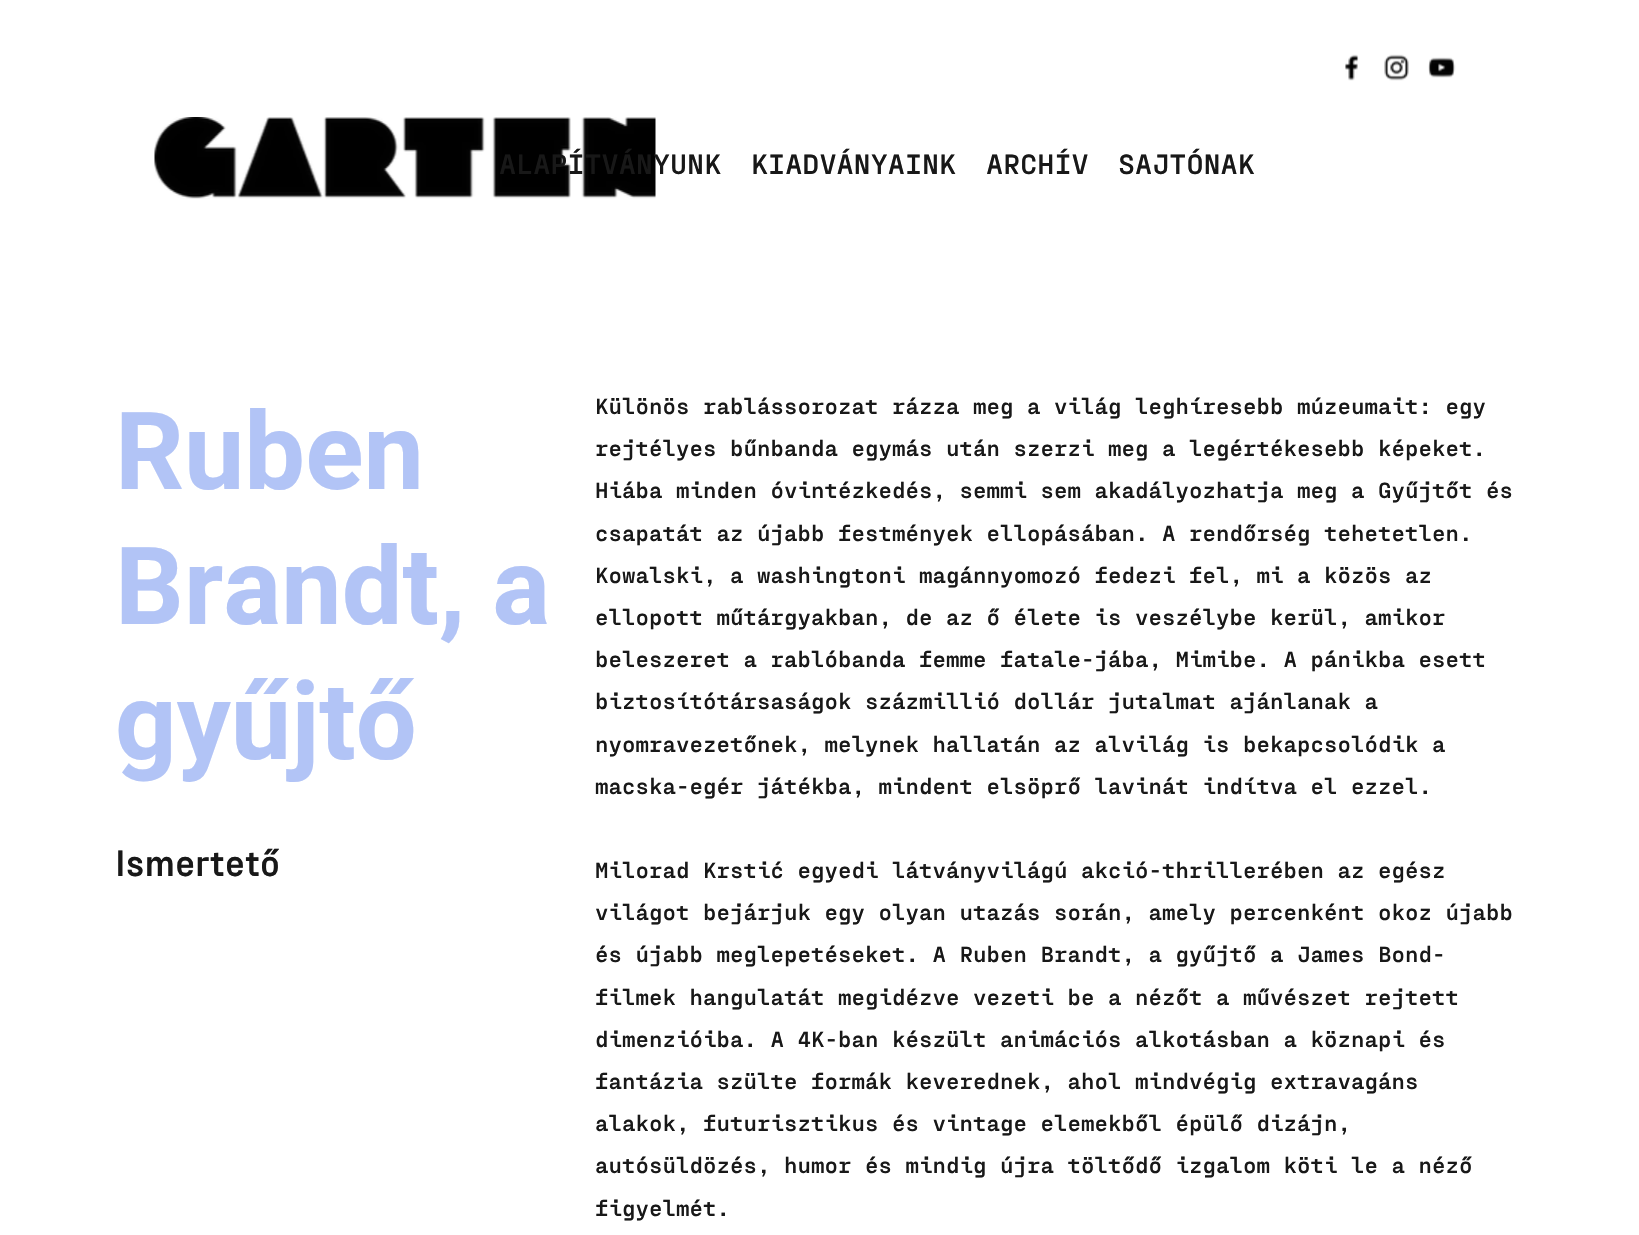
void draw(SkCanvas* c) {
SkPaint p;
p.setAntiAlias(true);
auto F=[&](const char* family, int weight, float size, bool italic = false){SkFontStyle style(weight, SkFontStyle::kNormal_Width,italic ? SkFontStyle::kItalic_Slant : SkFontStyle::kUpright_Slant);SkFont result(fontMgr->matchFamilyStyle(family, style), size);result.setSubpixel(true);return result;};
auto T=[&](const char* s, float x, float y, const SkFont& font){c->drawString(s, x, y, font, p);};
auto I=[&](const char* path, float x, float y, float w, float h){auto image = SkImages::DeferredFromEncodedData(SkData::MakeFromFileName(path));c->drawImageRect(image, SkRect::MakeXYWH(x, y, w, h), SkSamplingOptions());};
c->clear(0xffffffff);
I("1.png",154,117,502,82);
I("2.png",1345,54,14,27);
I("3.png",1384,54,25,27);
I("4.png",1428,57,28,21);
auto f1 = F("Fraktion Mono",700,28.5);
p.setColor(0xff181818);
T("ALAPÍTVÁNYUNK",499,174,f1);
T("KIADVÁNYAINK",751,174,f1);
T("ARCHÍV",986,174,f1);
T("SAJTÓNAK",1118,174,f1);
auto f2 = F("Roboto",700,108);
p.setColor(0xffb2c4f6);
T("Ruben",115,489,f2);
T("Brandt, a",115,624,f2);
T("gyűjtő",115,759,f2);
auto f3 = F("Fraktion Mono",700,22.5);
p.setColor(0xff181818);
T("Különös rablássorozat rázza meg a világ leghíresebb múzeumait: egy",595,414,f3);
T("rejtélyes bűnbanda egymás után szerzi meg a legértékesebb képeket.",595,456,f3);
T("Hiába minden óvintézkedés, semmi sem akadályozhatja meg a Gyűjtőt és",595,498,f3);
T("csapatát az újabb festmények ellopásában. A rendőrség tehetetlen.",595,541,f3);
T("Kowalski, a washingtoni magánnyomozó fedezi fel, mi a közös az",595,583,f3);
T("ellopott műtárgyakban, de az ő élete is veszélybe kerül, amikor",595,625,f3);
T("beleszeret a rablóbanda femme fatale-jába, Mimibe. A pánikba esett",595,667,f3);
T("biztosítótársaságok százmillió dollár jutalmat ajánlanak a",595,709,f3);
T("nyomravezetőnek, melynek hallatán az alvilág is bekapcsolódik a",595,752,f3);
T("macska-egér játékba, mindent elsöprő lavinát indítva el ezzel.",595,794,f3);
T("Milorad Krstić egyedi látványvilágú akció-thrillerében az egész",595,878,f3);
T("világot bejárjuk egy olyan utazás során, amely percenként okoz újabb",595,920,f3);
T("és újabb meglepetéseket. A Ruben Brandt, a gyűjtő a James Bond-",595,962,f3);
T("filmek hangulatát megidézve vezeti be a nézőt a művészet rejtett",595,1005,f3);
T("dimenzióiba. A 4K-ban készült animációs alkotásban a köznapi és",595,1047,f3);
T("fantázia szülte formák keverednek, ahol mindvégig extravagáns",595,1089,f3);
T("alakok, futurisztikus és vintage elemekből épülő dizájn,",595,1131,f3);
T("autósüldözés, humor és mindig újra töltődő izgalom köti le a néző",595,1173,f3);
T("figyelmét.",595,1216,f3);
auto f4 = F("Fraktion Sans",700,37.5);
T("Ismertető",115,876,f4);
}
